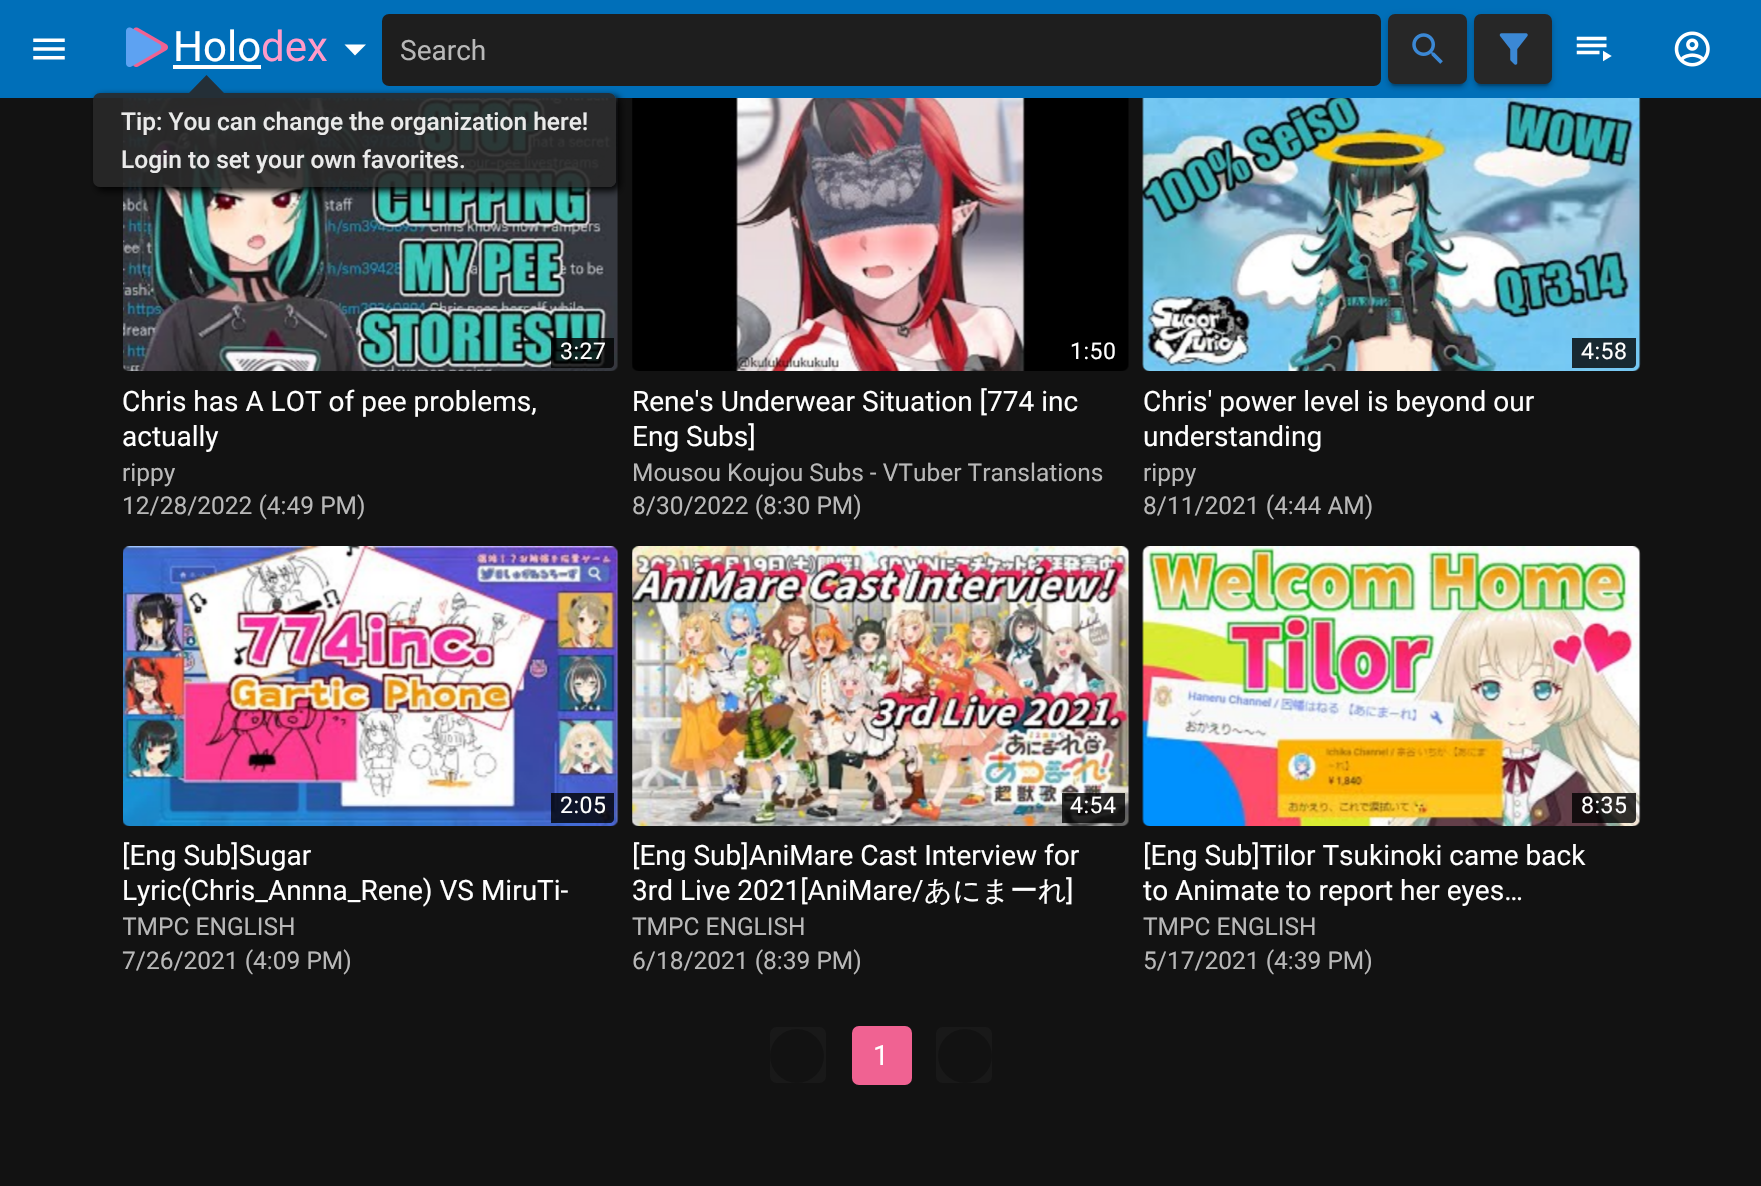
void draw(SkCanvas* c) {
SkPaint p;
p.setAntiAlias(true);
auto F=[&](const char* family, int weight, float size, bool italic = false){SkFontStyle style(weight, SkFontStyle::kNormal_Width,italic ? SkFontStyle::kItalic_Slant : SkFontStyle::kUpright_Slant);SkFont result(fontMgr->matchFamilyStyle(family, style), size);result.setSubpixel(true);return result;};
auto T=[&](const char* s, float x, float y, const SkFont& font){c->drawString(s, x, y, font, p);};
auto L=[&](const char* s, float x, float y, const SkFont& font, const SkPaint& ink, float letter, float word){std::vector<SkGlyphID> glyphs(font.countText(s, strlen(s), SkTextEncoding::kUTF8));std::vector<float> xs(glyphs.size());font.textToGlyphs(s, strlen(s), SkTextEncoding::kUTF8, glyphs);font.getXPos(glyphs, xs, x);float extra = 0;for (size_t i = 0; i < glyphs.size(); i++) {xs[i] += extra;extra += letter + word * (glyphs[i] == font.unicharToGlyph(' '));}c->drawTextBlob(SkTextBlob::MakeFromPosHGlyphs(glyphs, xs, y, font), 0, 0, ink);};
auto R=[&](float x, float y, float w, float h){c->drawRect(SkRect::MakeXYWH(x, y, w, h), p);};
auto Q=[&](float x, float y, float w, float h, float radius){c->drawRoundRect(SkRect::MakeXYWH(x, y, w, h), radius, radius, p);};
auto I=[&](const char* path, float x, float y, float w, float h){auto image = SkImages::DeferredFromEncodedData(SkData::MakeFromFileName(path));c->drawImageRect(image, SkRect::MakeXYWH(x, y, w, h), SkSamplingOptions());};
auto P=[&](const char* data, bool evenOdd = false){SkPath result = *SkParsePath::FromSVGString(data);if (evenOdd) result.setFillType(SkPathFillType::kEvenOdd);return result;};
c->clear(0xff121212);
p.setColor(0xff006fb9);
R(0,0,1761,98);
I("1.png",33,38,32,22);
I("2.png",126,27,42,40);
auto f1 = F("Roboto",400,42);
p.setColor(0xffffffff);
T("Holo",173,61,f1);
R(173,65,88,4);
p.setColor(0xffff9ac8);
T("dex",261,61,f1);
p.setColor(0xffffffff);
c->drawPath(P("M344.5 44.5l10.5 11l11-11z"),p);
p.setColor(0xff1e1e1e);
Q(382,14,999,72,7);
auto f2 = F("Roboto",400,28);
p.setColor(0xffb8b8b8);
T("Search",400,60,f2);
I("9.png",1142,98,499,273);
p.setColor(0x1f000000);
p.setMaskFilter(SkMaskFilter::MakeBlur(kNormal_SkBlurStyle, 4.5));
c->drawRoundRect(SkRect::MakeXYWH(1388,16,79,70),7,7,p);
p.setMaskFilter(nullptr);
p.setColor(0x24000000);
p.setMaskFilter(SkMaskFilter::MakeBlur(kNormal_SkBlurStyle, 2));
c->drawRoundRect(SkRect::MakeXYWH(1388,18,79,70),7,7,p);
p.setMaskFilter(nullptr);
p.setColor(0x33000000);
p.setMaskFilter(SkMaskFilter::MakeBlur(kNormal_SkBlurStyle, 1));
c->drawRoundRect(SkRect::MakeXYWH(1391,23,72,63),4,4,p);
p.setMaskFilter(nullptr);
p.setColor(0xff272727);
Q(1388,14,79,70,7);
I("3.png",1412,33,31,31);
p.setColor(0x1f000000);
p.setMaskFilter(SkMaskFilter::MakeBlur(kNormal_SkBlurStyle, 4.5));
c->drawRoundRect(SkRect::MakeXYWH(1474,16,78,70),7,7,p);
p.setMaskFilter(nullptr);
p.setColor(0x24000000);
p.setMaskFilter(SkMaskFilter::MakeBlur(kNormal_SkBlurStyle, 2));
c->drawRoundRect(SkRect::MakeXYWH(1474,18,78,70),7,7,p);
p.setMaskFilter(nullptr);
p.setColor(0x33000000);
p.setMaskFilter(SkMaskFilter::MakeBlur(kNormal_SkBlurStyle, 1));
c->drawRoundRect(SkRect::MakeXYWH(1477,23,72,63),4,4,p);
p.setMaskFilter(nullptr);
p.setColor(0xff272727);
Q(1474,14,78,70,7);
I("4.png",1499,33,29,32);
I("5.png",1576,36,36,26);
I("6.png",1674,31,36,36);
I("7.png",123,98,495,273);
p.setColor(0xcc000000);
c->drawPath(P("M551 338h63v26c0 2-2 4-4 4h-59z"),p);
auto f3 = F("Roboto",400,23);
p.setColor(0xffffffff);
L("3:27",560,359,f3,p,.5,0);
T("Chris has A LOT of pee problems,",122,411,f2);
T("actually",122,446,f2);
auto f4 = F("Roboto",400,24.5);
p.setColor(0xffb8b8b8);
T("rippy",122,481,f4);
T("12/28/2022 (4:49 PM)",122,514,f4);
I("8.png",632,98,497,273);
p.setColor(0xffffffff);
L("1:50",1070,359,f3,p,.5,0);
T("Rene's Underwear Situation [774 inc",632,411,f2);
T("Eng Subs]",632,446,f2);
p.setColor(0xffb8b8b8);
T("Mousou Koujou Subs - VTuber Translations",632,481,f4);
T("8/30/2022 (8:30 PM)",632,514,f4);
p.setColor(0xcc000000);
c->drawPath(P("M1572 338h64v26c0 2-2 4-4 4h-60z"),p);
p.setColor(0xffffffff);
L("4:58",1581,359,f3,p,.5,0);
T("Chris' power level is beyond our",1143,411,f2);
T("understanding",1143,446,f2);
p.setColor(0xffb8b8b8);
T("rippy",1143,481,f4);
T("8/11/2021 (4:44 AM)",1143,514,f4);
I("10.png",123,546,496,280);
p.setColor(0xcc000000);
c->drawPath(P("M551 793h63v26c0 2-2 4-4 4h-59z"),p);
p.setColor(0xffffffff);
L("2:05",560,813,f3,p,.5,0);
T("[Eng Sub]Sugar",122,865,f2);
T("Lyric(Chris_Annna_Rene) VS MiruTi-",122,900,f2);
c->save();
c->clipRect(SkRect::MakeXYWH(123,914,495,29));
p.setColor(0xffb8b8b8);
T("TMPC ENGLISH",122,935,f4);
c->restore();
T("7/26/2021 (4:09 PM)",122,969,f4);
I("11.png",632,546,498,280);
p.setColor(0xcc000000);
c->drawPath(P("M1062 793h63v26c0 2-2 4-4 4h-59z"),p);
p.setColor(0xffffffff);
L("4:54",1070,813,f3,p,.5,0);
T("[Eng Sub]AniMare Cast Interview for",632,865,f2);
T("3rd Live 2021[AniMare/",632,900,f2);
auto f5 = F("WenQuanYi Zen Hei",500,28);
T("あにまーれ",924,900,f5);
T("]",1066,900,f2);
p.setColor(0xffb8b8b8);
T("TMPC ENGLISH",632,935,f4);
T("6/18/2021 (8:39 PM)",632,969,f4);
I("12.png",1142,546,499,280);
p.setColor(0xcc000000);
c->drawPath(P("M1572 793h64v26c0 2-2 4-4 4h-60z"),p);
p.setColor(0xffffffff);
L("8:35",1581,813,f3,p,.5,0);
T("[Eng Sub]Tilor Tsukinoki came back",1143,865,f2);
T("to Animate to report her eyes…",1143,900,f2);
p.setColor(0xffb8b8b8);
T("TMPC ENGLISH",1143,935,f4);
T("5/17/2021 (4:39 PM)",1143,969,f4);
p.setColor(0xff191919);
Q(770,1027,56,56,7);
p.setColor(0xff121212);
c->drawCircle(797,1056,27,p);
p.setColor(0xfff06292);
Q(852,1026,60,59,7);
p.setColor(0xffffffff);
T("1",873,1065,f2);
p.setColor(0xff191919);
Q(936,1027,56,56,7);
p.setColor(0xff121212);
c->drawCircle(965,1056,27,p);
c->save();
c->clipPath(P("M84 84h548v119h-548zm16 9h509c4 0 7 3 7 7v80c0 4-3 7-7 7h-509c-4 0-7-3-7-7v-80c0-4 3-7 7-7z",true),true);
p.setColor(0xe6000000);
p.setMaskFilter(SkMaskFilter::MakeBlur(kNormal_SkBlurStyle, 3.5));
c->drawRoundRect(SkRect::MakeXYWH(96,96,524,95),7,7,p);
p.setMaskFilter(nullptr);
c->restore();
p.setColor(0xe6282828);
Q(93,93,523,94,7);
p.setColor(0xff242f37);
c->drawPath(P("M224 93h-35l17.5-18z"),p);
auto f6 = F("Roboto",500,24.5);
p.setColor(0xffeaeaea);
T("Tip: You can change the organization here!",121,130,f6);
T("Login to set your own favorites.",121,168,f6);
}
